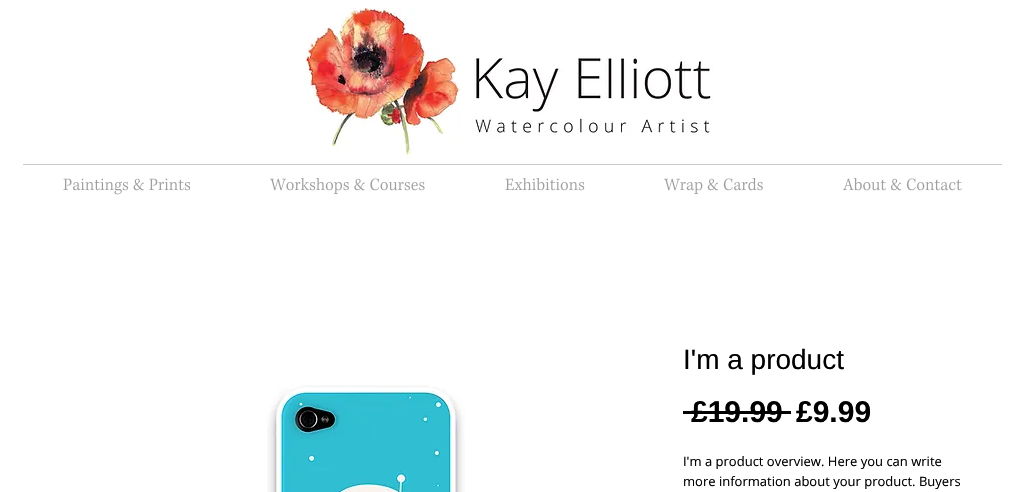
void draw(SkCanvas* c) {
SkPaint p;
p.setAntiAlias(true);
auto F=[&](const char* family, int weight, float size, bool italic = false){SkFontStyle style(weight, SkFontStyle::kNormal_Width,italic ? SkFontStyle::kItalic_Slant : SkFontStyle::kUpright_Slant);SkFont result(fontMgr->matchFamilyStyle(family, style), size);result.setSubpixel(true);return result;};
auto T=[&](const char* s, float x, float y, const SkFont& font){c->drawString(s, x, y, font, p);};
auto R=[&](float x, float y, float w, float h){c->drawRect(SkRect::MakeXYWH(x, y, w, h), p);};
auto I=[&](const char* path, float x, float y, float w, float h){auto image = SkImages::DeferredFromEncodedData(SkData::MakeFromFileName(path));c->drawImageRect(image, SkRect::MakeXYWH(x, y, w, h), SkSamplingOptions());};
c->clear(0xffffffff);
I("1.png",304,7,409,151);
p.setColor(0xffcacaca);
R(23,164,979,1);
I("2.png",63,178,128,17);
I("3.png",270,178,155,17);
I("4.png",505,178,80,13);
I("5.png",664,178,99,17);
I("6.png",842,178,120,13);
I("7.png",267,385,198,107);
auto f1 = F("Liberation Sans",400,28);
p.setColor(0xff000000);
T("I'm a product",683,369,f1);
auto f2 = F("Liberation Sans",700,30);
T("£19.99",691,422,f2);
R(683,411,108,3);
T("£9.99",796,422,f2);
auto f3 = F("Open Sans",400,13);
T("I'm a product overview. Here you can write",683,466,f3);
T("more information about your product. Buyers",683,486,f3);
}
